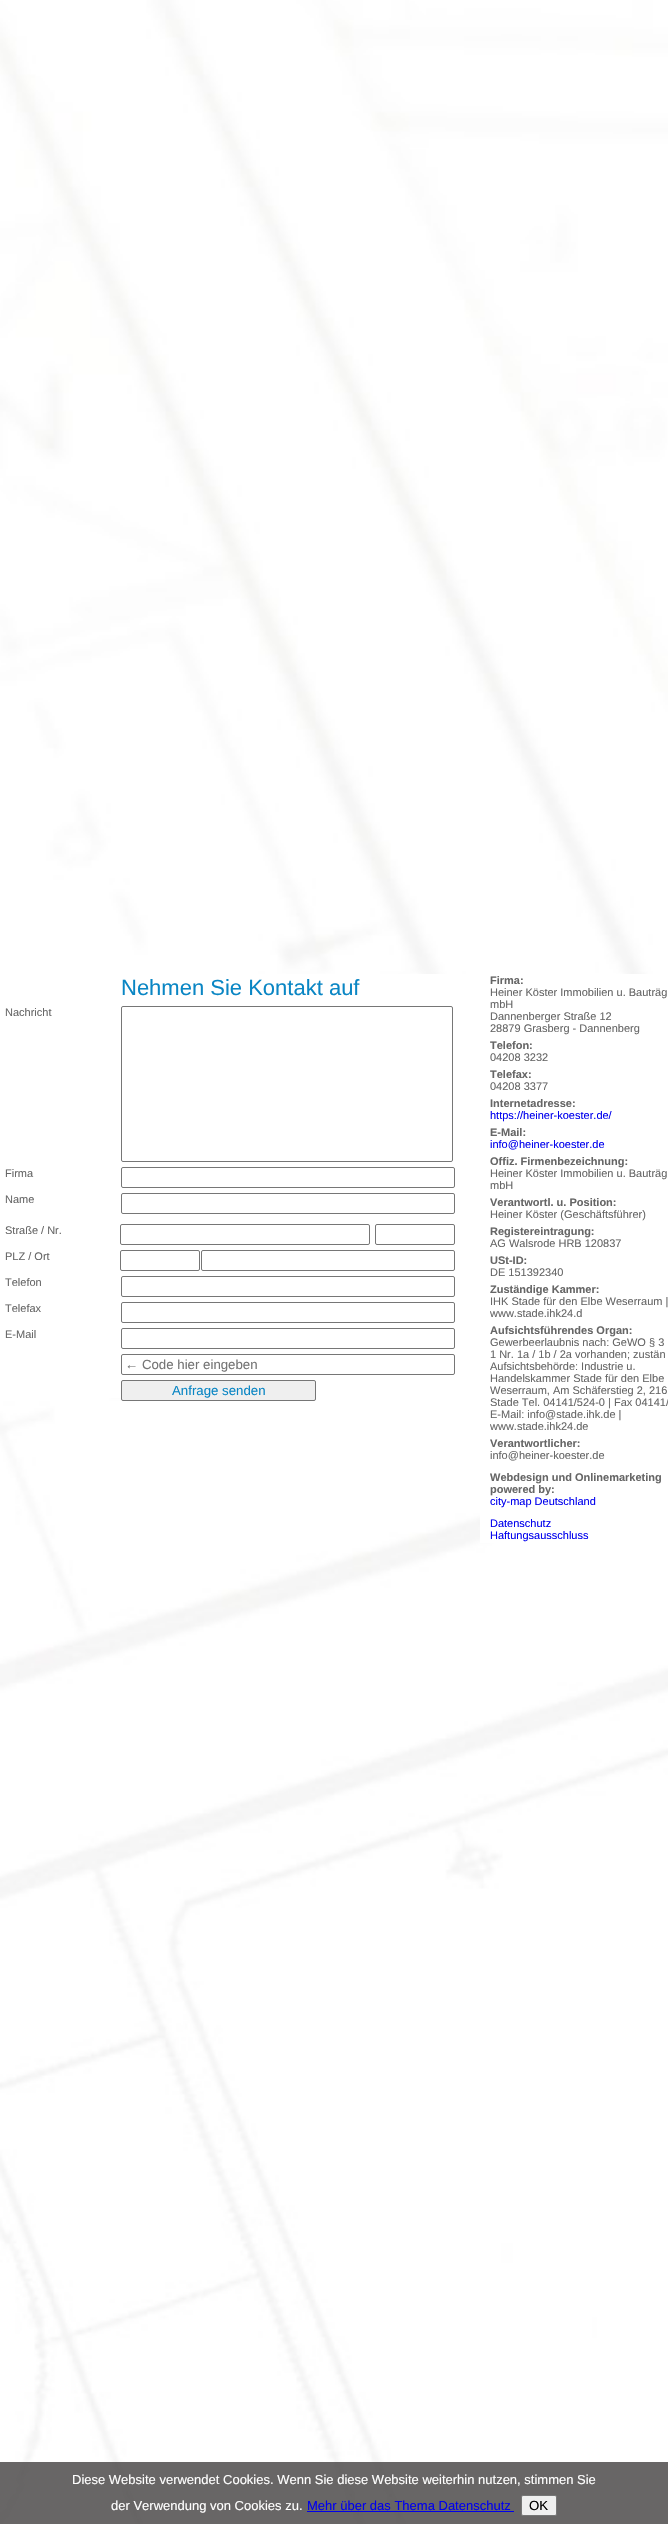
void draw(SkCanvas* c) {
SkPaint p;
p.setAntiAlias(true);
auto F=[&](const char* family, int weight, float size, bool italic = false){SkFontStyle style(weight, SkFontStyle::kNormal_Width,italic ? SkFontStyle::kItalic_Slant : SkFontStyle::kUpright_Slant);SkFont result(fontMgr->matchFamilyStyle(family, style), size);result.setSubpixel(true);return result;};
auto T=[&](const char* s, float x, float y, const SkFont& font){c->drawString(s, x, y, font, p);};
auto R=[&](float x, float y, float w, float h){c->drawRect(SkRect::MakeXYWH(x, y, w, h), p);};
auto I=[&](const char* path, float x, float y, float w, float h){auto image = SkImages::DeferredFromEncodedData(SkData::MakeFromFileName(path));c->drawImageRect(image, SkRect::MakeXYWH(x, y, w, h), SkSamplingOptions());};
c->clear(0xffffffff);
I("1.png",0,0,668,2524);
p.setColor(0xffffffff);
R(0,974,480,424);
auto f1 = F("Liberation Sans",400,22);
p.setColor(0xff0a86c4);
T("Nehmen Sie Kontakt auf",121,995,f1);
auto f2 = F("Liberation Sans",400,11);
p.setColor(0xff666666);
T("Nachricht",5,1016,f2);
p.setStroke(true);
p.setStrokeWidth(1);
p.setColor(0xff767676);
c->drawRoundRect(SkRect::MakeXYWH(121.5,1006.5,331,155),1.5,1.5,p);
p.setStroke(false);
p.setColor(0xff666666);
T("Firma",5,1177,f2);
p.setStroke(true);
p.setColor(0xff767676);
c->drawRoundRect(SkRect::MakeXYWH(121.5,1167.5,333,20),1.5,1.5,p);
p.setStroke(false);
p.setColor(0xff666666);
T("Name",5,1203,f2);
p.setStroke(true);
p.setColor(0xff767676);
c->drawRoundRect(SkRect::MakeXYWH(121.5,1193.5,333,20),1.5,1.5,p);
p.setStroke(false);
p.setColor(0xff666666);
T("Straße / Nr.",5,1234,f2);
p.setStroke(true);
p.setColor(0xff767676);
c->drawRoundRect(SkRect::MakeXYWH(120.5,1224.5,249,20),1.5,1.5,p);
c->drawRoundRect(SkRect::MakeXYWH(375.5,1224.5,79,20),1.5,1.5,p);
p.setStroke(false);
p.setColor(0xff666666);
T("PLZ / Ort",5,1260,f2);
p.setStroke(true);
p.setColor(0xff767676);
c->drawRoundRect(SkRect::MakeXYWH(120.5,1250.5,79,20),1.5,1.5,p);
c->drawRoundRect(SkRect::MakeXYWH(201.5,1250.5,253,20),1.5,1.5,p);
p.setStroke(false);
p.setColor(0xff666666);
T("Telefon",5,1286,f2);
p.setStroke(true);
p.setColor(0xff767676);
c->drawRoundRect(SkRect::MakeXYWH(121.5,1276.5,333,20),1.5,1.5,p);
p.setStroke(false);
p.setColor(0xff666666);
T("Telefax",5,1312,f2);
p.setStroke(true);
p.setColor(0xff767676);
c->drawRoundRect(SkRect::MakeXYWH(121.5,1302.5,333,20),1.5,1.5,p);
p.setStroke(false);
p.setColor(0xff666666);
T("E-Mail",5,1338,f2);
p.setStroke(true);
p.setColor(0xff767676);
c->drawRoundRect(SkRect::MakeXYWH(121.5,1328.5,333,20),1.5,1.5,p);
c->drawRoundRect(SkRect::MakeXYWH(121.5,1354.5,333,20),1.5,1.5,p);
auto f3 = F("Liberation Sans",400,13.25);
p.setStroke(false);
p.setColor(0xff757575);
T("← Code hier eingeben",125,1369,f3);
p.setColor(0xffefefef);
c->drawRoundRect(SkRect::MakeXYWH(121.5,1380.5,194,20),1.5,1.5,p);
p.setStroke(true);
p.setColor(0xff767676);
c->drawRoundRect(SkRect::MakeXYWH(121.5,1380.5,194,20),1.5,1.5,p);
p.setStroke(false);
p.setColor(0xff0a86c4);
T("Anfrage senden",172,1395,f3);
p.setColor(0xffffffff);
R(480,974,188,569);
auto f4 = F("Liberation Sans",700,11);
p.setColor(0xff666666);
T("Firma:",490,984,f4);
T("Heiner Köster Immobilien u. Bauträg",490,996,f2);
T("mbH",490,1008,f2);
T("Dannenberger Straße 12",490,1020,f2);
T("28879 Grasberg - Dannenberg",490,1032,f2);
T("Telefon:",490,1049,f4);
T("04208 3232",490,1061,f2);
T("Telefax:",490,1078,f4);
T("04208 3377",490,1090,f2);
T("Internetadresse:",490,1107,f4);
p.setColor(0xff0000ee);
T("https://heiner-koester.de/",490,1119,f2);
p.setColor(0xff666666);
T("E-Mail:",490,1136,f4);
p.setColor(0xff0000ee);
T("info@heiner-koester.de",490,1148,f2);
p.setColor(0xff666666);
T("Offiz. Firmenbezeichnung:",490,1165,f4);
T("Heiner Köster Immobilien u. Bauträg",490,1177,f2);
T("mbH",490,1189,f2);
T("Verantwortl. u. Position:",490,1206,f4);
T("Heiner Köster (Geschäftsführer)",490,1218,f2);
T("Registereintragung:",490,1235,f4);
T("AG Walsrode HRB 120837",490,1247,f2);
T("USt-ID:",490,1264,f4);
T("DE 151392340",490,1276,f2);
T("Zuständige Kammer:",490,1293,f4);
T("IHK Stade für den Elbe Weserraum |",490,1305,f2);
T("www.stade.ihk24.d",490,1317,f2);
T("Aufsichtsführendes Organ:",490,1334,f4);
T("Gewerbeerlaubnis nach: GeWO § 3",490,1346,f2);
T("1 Nr. 1a / 1b / 2a vorhanden; zustän",490,1358,f2);
T("Aufsichtsbehörde: Industrie u.",490,1370,f2);
T("Handelskammer Stade für den Elbe",490,1382,f2);
T("Weserraum, Am Schäferstieg 2, 216",490,1394,f2);
T("Stade Tel. 04141/524-0 | Fax 04141/",490,1406,f2);
T("E-Mail: info@stade.ihk.de |",490,1418,f2);
T("www.stade.ihk24.de",490,1430,f2);
T("Verantwortlicher:",490,1447,f4);
T("info@heiner-koester.de",490,1459,f2);
T("Webdesign und Onlinemarketing",490,1481,f4);
T("powered by:",490,1493,f4);
p.setColor(0xff0000ee);
T("city-map Deutschland",490,1505,f2);
T("Datenschutz",490,1527,f2);
T("Haftungsausschluss",490,1539,f2);
p.setColor(0xcc424040);
R(0,2462,668,62);
auto f5 = F("Liberation Sans",400,13);
p.setColor(0xffffffff);
T("Diese Website verwendet Cookies. Wenn Sie diese Website weiterhin nutzen, stimmen Sie",72,2484,f5);
T("der Verwendung von Cookies zu.",111,2510,f5);
p.setColor(0xff0000ee);
T("Mehr über das Thema Datenschutz",307,2510,f5);
R(307,2511,207,1);
p.setColor(0xffefefef);
c->drawRoundRect(SkRect::MakeXYWH(521.5,2495.5,35,20),1.5,1.5,p);
p.setStroke(true);
p.setColor(0xff767676);
c->drawRoundRect(SkRect::MakeXYWH(521.5,2495.5,35,20),1.5,1.5,p);
p.setStroke(false);
p.setColor(0xff000000);
T("OK",529,2510,f3);
}
